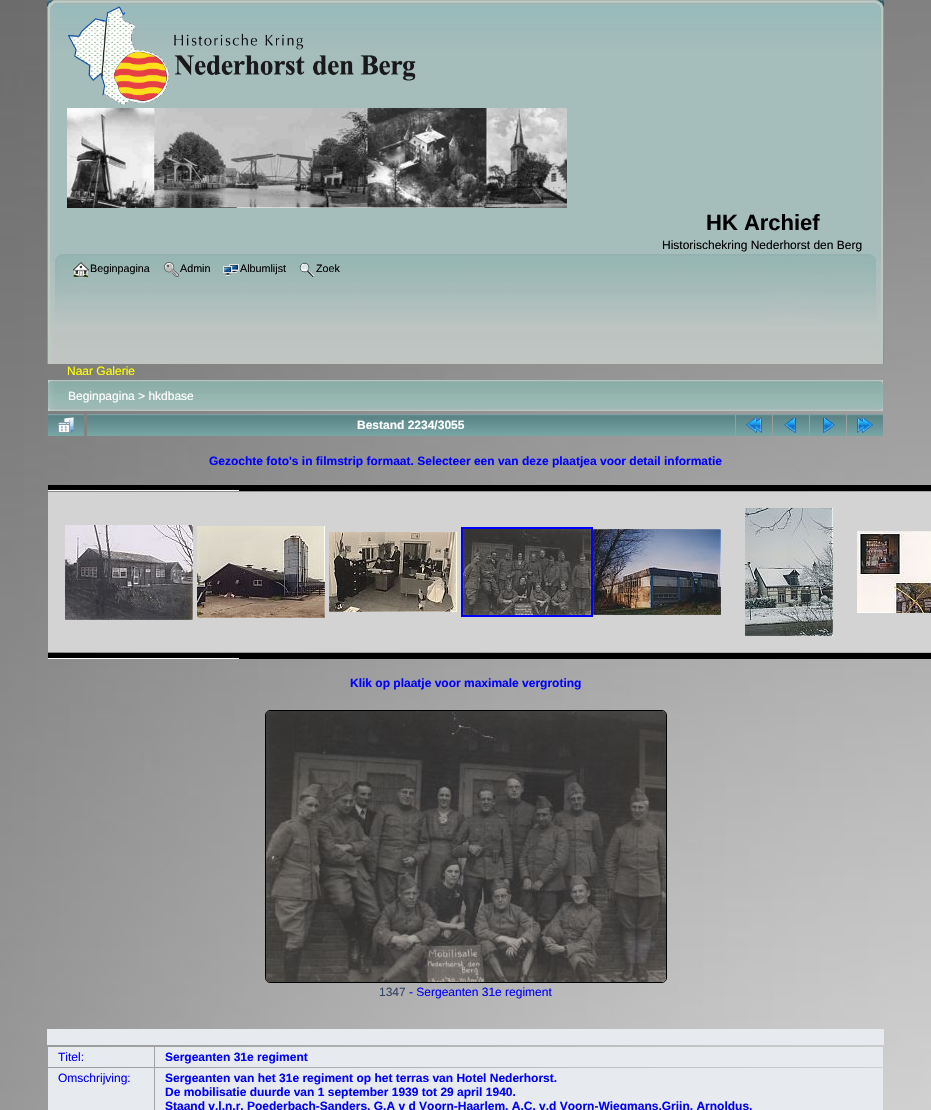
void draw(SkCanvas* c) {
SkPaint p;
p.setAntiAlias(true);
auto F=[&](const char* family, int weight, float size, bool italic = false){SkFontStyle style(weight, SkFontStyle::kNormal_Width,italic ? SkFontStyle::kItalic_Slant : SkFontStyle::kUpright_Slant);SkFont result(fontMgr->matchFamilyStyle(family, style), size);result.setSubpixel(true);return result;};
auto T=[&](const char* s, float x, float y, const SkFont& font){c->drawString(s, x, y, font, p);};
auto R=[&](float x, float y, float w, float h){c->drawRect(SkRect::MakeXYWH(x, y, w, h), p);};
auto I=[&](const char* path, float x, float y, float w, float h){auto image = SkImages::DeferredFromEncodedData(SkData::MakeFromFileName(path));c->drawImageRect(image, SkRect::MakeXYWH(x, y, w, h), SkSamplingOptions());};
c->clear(0xffffffff);
I("1.png",0,0,931,1110);
I("2.png",47,0,825,254);
I("3.png",872,0,12,254);
I("4.png",67,6,349,99);
I("5.png",67,108,500,100);
auto f1 = F("Liberation Sans",700,22);
p.setColor(0xff000000);
T("HK Archief",706,230,f1);
auto f2 = F("Liberation Sans",400,12);
T("Historischekring Nederhorst den Berg",662,249,f2);
I("6.png",47,254,823,110);
I("7.png",870,254,14,110);
I("8.png",73,262,16,16);
auto f3 = F("Liberation Sans",400,10.75);
T("Beginpagina",90,272,f3);
I("9.png",164,262,15,15);
T("Admin",180,272,f3);
I("10.png",223,264,16,12);
T("Albumlijst",240,272,f3);
I("11.png",299,262,16,15);
T("Zoek",316,272,f3);
p.setColor(0xffffff00);
T("Naar Galerie",67,375,f2);
I("12.png",48,380,831,31);
I("13.png",879,380,4,31);
p.setColor(0xffffffff);
T("Beginpagina > hkdbase",68,400,f2);
I("14.png",48,414,36,22);
I("15.png",58,417,16,16);
I("16.png",87,414,648,22);
auto f4 = F("Liberation Sans",700,12);
T("Bestand 2234/3055",357,429,f4);
I("14.png",736,414,36,22);
I("17.png",746,417,16,16);
I("14.png",773,414,36,22);
I("18.png",784,417,12,16);
I("14.png",810,414,36,22);
I("19.png",823,417,12,16);
I("14.png",847,414,36,22);
I("20.png",857,417,16,16);
p.setColor(0xff0000ff);
T("Gezochte foto's in filmstrip formaat. Selecteer een van deze plaatjea voor detail informatie",209,465,f4);
p.setColor(0xff000000);
R(48,485,883,6);
p.setColor(0xffffffff);
R(48,490,191,1);
p.setColor(0xffd3d3d3);
R(48,492,883,160);
I("21.png",65,525,128,95);
I("22.png",197,526,128,92);
I("23.png",329,532,128,80);
p.setStroke(true);
p.setStrokeWidth(2);
p.setColor(0xff0000ff);
c->drawRect(SkRect::MakeXYWH(462,528,130,88),p);
I("24.png",463,529,128,86);
I("25.png",593,529,128,86);
I("26.png",745,508,88,128);
I("27.png",857,531,74,82);
p.setStroke(false);
p.setColor(0xff000000);
R(48,653,883,6);
p.setColor(0xffffffff);
R(48,658,191,1);
p.setColor(0xff0000ff);
T("Klik op plaatje voor maximale vergroting",350,687,f4);
p.setStroke(true);
p.setStrokeWidth(1);
p.setColor(0xff000000);
c->drawRoundRect(SkRect::MakeXYWH(265.5,710.5,401,272),4.5,4.5,p);
I("28.png",266,711,400,271);
p.setStroke(false);
p.setColor(0xff334466);
T("1347",379,996,f2);
p.setColor(0xff0000ff);
T("- Sergeanten 31e regiment",409,996,f2);
p.setColor(0xffe7eaef);
R(47,1029,837,16);
R(48,1047,106,20);
p.setColor(0xff0000ff);
T("Titel:",58,1061,f2);
p.setColor(0xffe7eaef);
R(155,1047,728,20);
p.setColor(0xff0000ff);
T("Sergeanten 31e regiment",165,1061,f4);
p.setColor(0xffe7eaef);
R(48,1068,106,42);
p.setColor(0xff0000ff);
T("Omschrijving:",58,1082,f2);
p.setColor(0xffe7eaef);
R(155,1068,728,42);
p.setColor(0xff0000ff);
T("Sergeanten van het 31e regiment op het terras van Hotel Nederhorst.",165,1082,f4);
T("De mobilisatie duurde van 1 september 1939 tot 29 april 1940.",165,1096,f4);
T("Staand v.l.n.r. Poederbach-Sanders, G.A v d Voorn-Haarlem, A.C. v.d Voorn-Wiegmans,Grijn, Arnoldus,",165,1110,f4);
}
